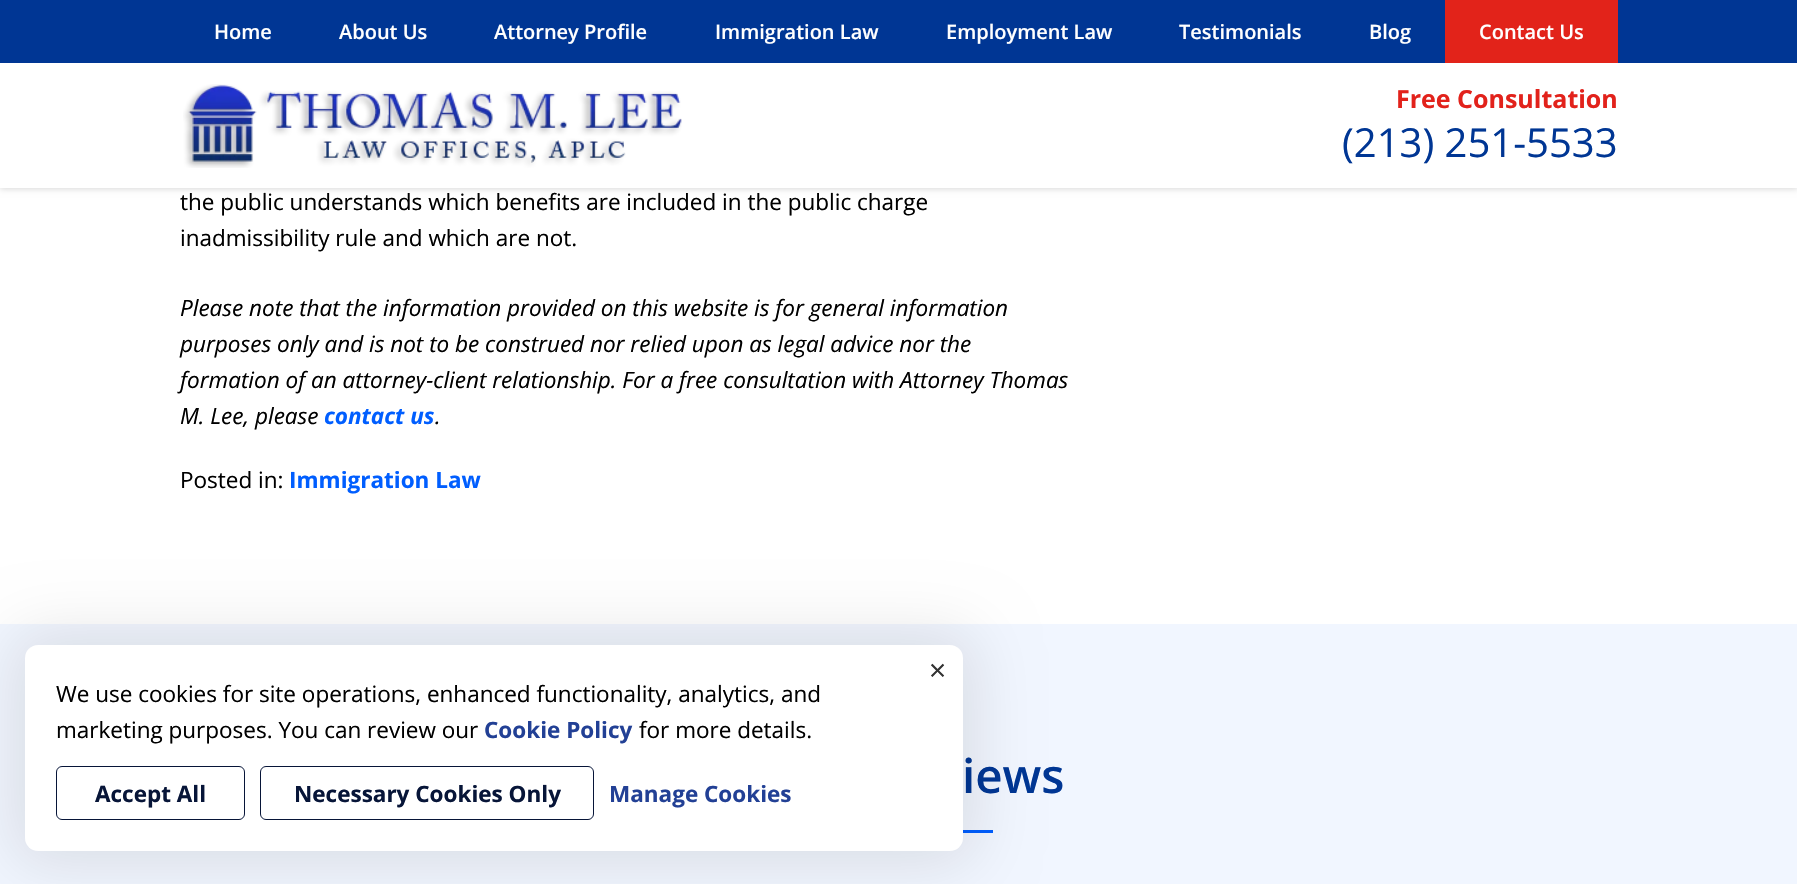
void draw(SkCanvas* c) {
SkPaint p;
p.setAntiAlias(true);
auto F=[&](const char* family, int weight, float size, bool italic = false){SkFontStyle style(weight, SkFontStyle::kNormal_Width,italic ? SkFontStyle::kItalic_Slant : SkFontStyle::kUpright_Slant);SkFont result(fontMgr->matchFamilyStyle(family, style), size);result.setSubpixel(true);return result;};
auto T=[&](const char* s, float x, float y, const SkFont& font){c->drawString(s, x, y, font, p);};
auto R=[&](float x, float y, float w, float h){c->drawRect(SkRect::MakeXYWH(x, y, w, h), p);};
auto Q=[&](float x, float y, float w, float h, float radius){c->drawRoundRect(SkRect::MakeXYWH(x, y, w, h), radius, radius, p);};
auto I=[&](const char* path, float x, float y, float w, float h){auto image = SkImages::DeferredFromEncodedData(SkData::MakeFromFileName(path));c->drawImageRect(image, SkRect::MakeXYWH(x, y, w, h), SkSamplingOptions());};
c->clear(0xffffffff);
p.setColor(0x26000000);
p.setMaskFilter(SkMaskFilter::MakeBlur(kNormal_SkBlurStyle, 3));
c->drawRect(SkRect::MakeXYWH(0,1,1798,188),p);
p.setMaskFilter(nullptr);
p.setColor(0xffffffff);
R(0,63,1797,125);
p.setColor(0xff003694);
R(0,0,1797,63);
auto f1 = F("Open Sans",600,20);
p.setColor(0xffffffff);
T("Home",214,39,f1);
T("About Us",339,39,f1);
T("Attorney Profile",494,39,f1);
T("Immigration Law",715,39,f1);
T("Employment Law",946,39,f1);
T("Testimonials",1179,39,f1);
T("Blog",1369,39,f1);
p.setColor(0xffe2231a);
R(1445,0,173,63);
p.setColor(0xffffffff);
T("Contact Us",1479,39,f1);
I("1.png",183,84,499,84);
auto f2 = F("Open Sans",700,25);
p.setColor(0xffe2221b);
T("Free Consultation",1396,108,f2);
auto f3 = F("Open Sans",400,40);
p.setColor(0xff003694);
T("(213) 251-5533",1342,157,f3);
auto f4 = F("Open Sans",400,22.5);
p.setColor(0xff000000);
T("the public understands which benefits are included in the public charge",180,210,f4);
T("inadmissibility rule and which are not.",180,246,f4);
auto f5 = F("Open Sans",400,22.5,true);
T("Please note that the information provided on this website is for general information",180,316,f5);
T("purposes only and is not to be construed nor relied upon as legal advice nor the",180,352,f5);
T("formation of an attorney-client relationship. For a free consultation with Attorney Thomas",180,388,f5);
T("M. Lee, please",180,424,f5);
auto f6 = F("Open Sans",700,22.5,true);
p.setColor(0xff005eff);
T("contact us",324,424,f6);
p.setColor(0xff000000);
T(".",435,424,f5);
T("Posted in:",180,488,f4);
auto f7 = F("Open Sans",700,22.5);
p.setColor(0xff005eff);
T("Immigration Law",289,488,f7);
p.setColor(0xfff1f6ff);
R(0,624,1797,260);
auto f8 = F("Open Sans",600,47.5);
p.setColor(0xff003694);
T("iews",962,793,f8);
p.setColor(0xff005eff);
R(963,830,30,3);
p.setColor(0x1a000000);
p.setMaskFilter(SkMaskFilter::MakeBlur(kNormal_SkBlurStyle, 31));
c->drawRoundRect(SkRect::MakeXYWH(13,633,962,231),25,25,p);
p.setMaskFilter(nullptr);
p.setColor(0xffffffff);
Q(25,645,938,206,13);
auto f9 = F("Open Sans",400,30);
p.setColor(0xff333333);
T("×",929,681,f9);
p.setColor(0xff000000);
T("We use cookies for site operations, enhanced functionality, analytics, and",56,702,f4);
T("marketing purposes. You can review our",56,738,f4);
p.setColor(0xff224095);
T("Cookie Policy",484,738,f7);
p.setColor(0xff000000);
T("for more details.",639,738,f4);
p.setStroke(true);
p.setStrokeWidth(1);
p.setColor(0xff071538);
c->drawRoundRect(SkRect::MakeXYWH(56.5,766.5,188,53),5.5,5.5,p);
p.setStroke(false);
T("Accept All",95,802,f7);
p.setStroke(true);
c->drawRoundRect(SkRect::MakeXYWH(260.5,766.5,333,53),5.5,5.5,p);
p.setStroke(false);
T("Necessary Cookies Only",294,802,f7);
p.setColor(0xff224095);
T("Manage Cookies",609,802,f7);
}
